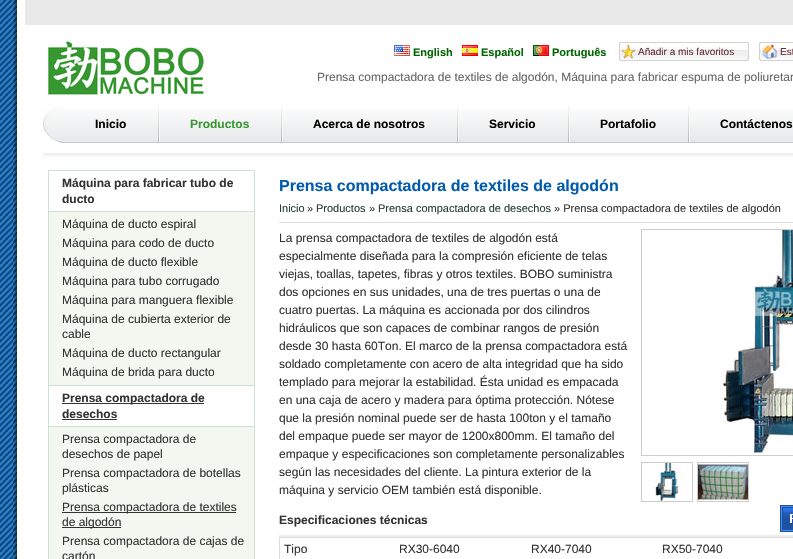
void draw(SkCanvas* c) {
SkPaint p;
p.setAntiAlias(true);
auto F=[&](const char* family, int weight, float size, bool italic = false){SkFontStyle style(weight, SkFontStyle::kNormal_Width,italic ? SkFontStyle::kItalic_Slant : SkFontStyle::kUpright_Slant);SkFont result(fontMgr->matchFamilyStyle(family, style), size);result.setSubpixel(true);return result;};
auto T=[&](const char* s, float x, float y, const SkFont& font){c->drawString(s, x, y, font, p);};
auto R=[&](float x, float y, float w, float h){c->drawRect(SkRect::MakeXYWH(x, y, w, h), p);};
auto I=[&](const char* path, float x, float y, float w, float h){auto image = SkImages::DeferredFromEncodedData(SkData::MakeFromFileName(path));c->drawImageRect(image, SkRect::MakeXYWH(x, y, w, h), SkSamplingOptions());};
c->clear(0xffffffff);
I("1.png",0,0,13,559);
I("2.png",13,0,780,143);
p.setColor(0xffe8e8e8);
R(25,0,768,25);
I("3.png",48,41,156,54);
I("4.png",394,45,16,11);
auto f1 = F("Liberation Sans",700,11);
p.setColor(0xff006600);
T("English",413,56,f1);
I("5.png",462,45,16,11);
T("Español",481,56,f1);
I("6.png",533,45,16,11);
T("Português",552,56,f1);
I("7.png",619,42,130,19);
auto f2 = F("Liberation Sans",400,10);
p.setColor(0xff663137);
T("Añadir a mis favoritos",638,55,f2);
I("8.png",759,42,34,19);
T("Est",780,55,f2);
auto f3 = F("Liberation Sans",400,12);
p.setColor(0xff666666);
T("Prensa compactadora de textiles de algodón, Máquina para fabricar espuma de poliuretan",317,81,f3);
I("9.png",63,109,730,34);
I("10.png",43,107,20,36);
auto f4 = F("Liberation Sans",700,12);
p.setColor(0xff000000);
T("Inicio",95,128,f4);
I("11.png",158,105,2,37);
p.setColor(0xff379831);
T("Productos",190,128,f4);
I("11.png",281,105,2,37);
p.setColor(0xff000000);
T("Acerca de nosotros",313,128,f4);
I("11.png",457,105,2,37);
T("Servicio",489,128,f4);
I("11.png",568,105,2,37);
T("Portafolio",600,128,f4);
I("11.png",688,105,2,37);
T("Contáctenos",720,128,f4);
I("12.png",13,143,780,416);
I("13.png",43,153,750,4);
p.setColor(0xfff2f8ef);
R(49,212,205,347);
p.setStroke(true);
p.setStrokeWidth(1);
p.setColor(0xffcde0d3);
c->drawRect(SkRect::MakeXYWH(48.5,170.5,206,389),p);
p.setStroke(false);
R(49,211,205,1);
p.setColor(0xff333333);
T("Máquina para fabricar tubo de",62,187,f4);
T("ducto",62,203,f4);
T("Máquina de ducto espiral",62,228,f3);
T("Máquina para codo de ducto",62,247,f3);
T("Máquina de ducto flexible",62,266,f3);
T("Máquina para tubo corrugado",62,285,f3);
T("Máquina para manguera flexible",62,304,f3);
T("Máquina de cubierta exterior de",62,323,f3);
T("cable",62,338,f3);
T("Máquina de ducto rectangular",62,357,f3);
T("Máquina de brida para ducto",62,376,f3);
p.setColor(0xffffffff);
R(49,386,205,40);
p.setColor(0xffcde0d3);
R(49,385,205,1);
R(49,426,205,1);
p.setColor(0xff333333);
R(62,403,142,1);
T("Prensa compactadora de",62,402,f4);
T("desechos",62,418,f4);
R(62,419,55,1);
T("Prensa compactadora de",62,443,f3);
T("desechos de papel",62,458,f3);
T("Prensa compactadora de botellas",62,477,f3);
T("plásticas",62,492,f3);
R(62,512,174,1);
T("Prensa compactadora de textiles",62,511,f3);
R(62,527,59,1);
T("de algodón",62,526,f3);
T("Prensa compactadora de cajas de",62,545,f3);
T("cartón",62,560,f3);
auto f5 = F("Liberation Sans",700,16);
p.setColor(0xff025bad);
T("Prensa compactadora de textiles de algodón",279,191,f5);
p.setColor(0xffdddddd);
R(279,222,514,1);
auto f6 = F("Liberation Sans",400,11);
p.setColor(0xff253e34);
T("Inicio",279,212,f6);
p.setColor(0xff333333);
T("»",307,212,f6);
p.setColor(0xff253e34);
T("Productos",316,212,f6);
p.setColor(0xff333333);
T("»",369,212,f6);
p.setColor(0xff253e34);
T("Prensa compactadora de desechos",378,212,f6);
p.setColor(0xff333333);
T("» Prensa compactadora de textiles de algodón",554,212,f6);
T("La prensa compactadora de textiles de algodón está",279,242,f3);
T("especialmente diseñada para la compresión eficiente de telas",279,260,f3);
T("viejas, toallas, tapetes, fibras y otros textiles. BOBO suministra",279,278,f3);
T("dos opciones en sus unidades, una de tres puertas o una de",279,296,f3);
T("cuatro puertas. La máquina es accionada por dos cilindros",279,314,f3);
T("hidráulicos que son capaces de combinar rangos de presión",279,332,f3);
T("desde 30 hasta 60Ton. El marco de la prensa compactadora está",279,350,f3);
T("soldado completamente con acero de alta integridad que ha sido",279,368,f3);
T("templado para mejorar la estabilidad. Ésta unidad es empacada",279,386,f3);
T("en una caja de acero y madera para óptima protección. Nótese",279,404,f3);
T("que la presión nominal puede ser de hasta 100ton y el tamaño",279,422,f3);
T("del empaque puede ser mayor de 1200x800mm. El tamaño del",279,440,f3);
T("empaque y especificaciones son completamente personalizables",279,458,f3);
T("según las necesidades del cliente. La pintura exterior de la",279,476,f3);
T("máquina y servicio OEM también está disponible.",279,494,f3);
p.setStroke(true);
p.setColor(0xffcccccc);
c->drawRect(SkRect::MakeXYWH(641.5,229.5,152,226),p);
I("14.png",722,230,71,224);
c->drawRect(SkRect::MakeXYWH(641.5,462.5,51,39),p);
I("15.png",652,463,30,38);
c->drawRect(SkRect::MakeXYWH(697.5,462.5,51,39),p);
I("16.png",698,463,50,38);
I("17.png",780,505,13,27);
p.setStroke(false);
p.setColor(0xff333333);
T("Especificaciones técnicas",279,524,f4);
p.setColor(0xffdddddd);
R(279,537,514,22);
p.setColor(0xffeeeeee);
R(279,535,514,2);
p.setColor(0xffffffff);
R(280,538,513,21);
p.setColor(0xff333333);
T("Tipo",284,553,f3);
T("RX30-6040",399,553,f3);
T("RX40-7040",531,553,f3);
T("RX50-7040",662,553,f3);
}
